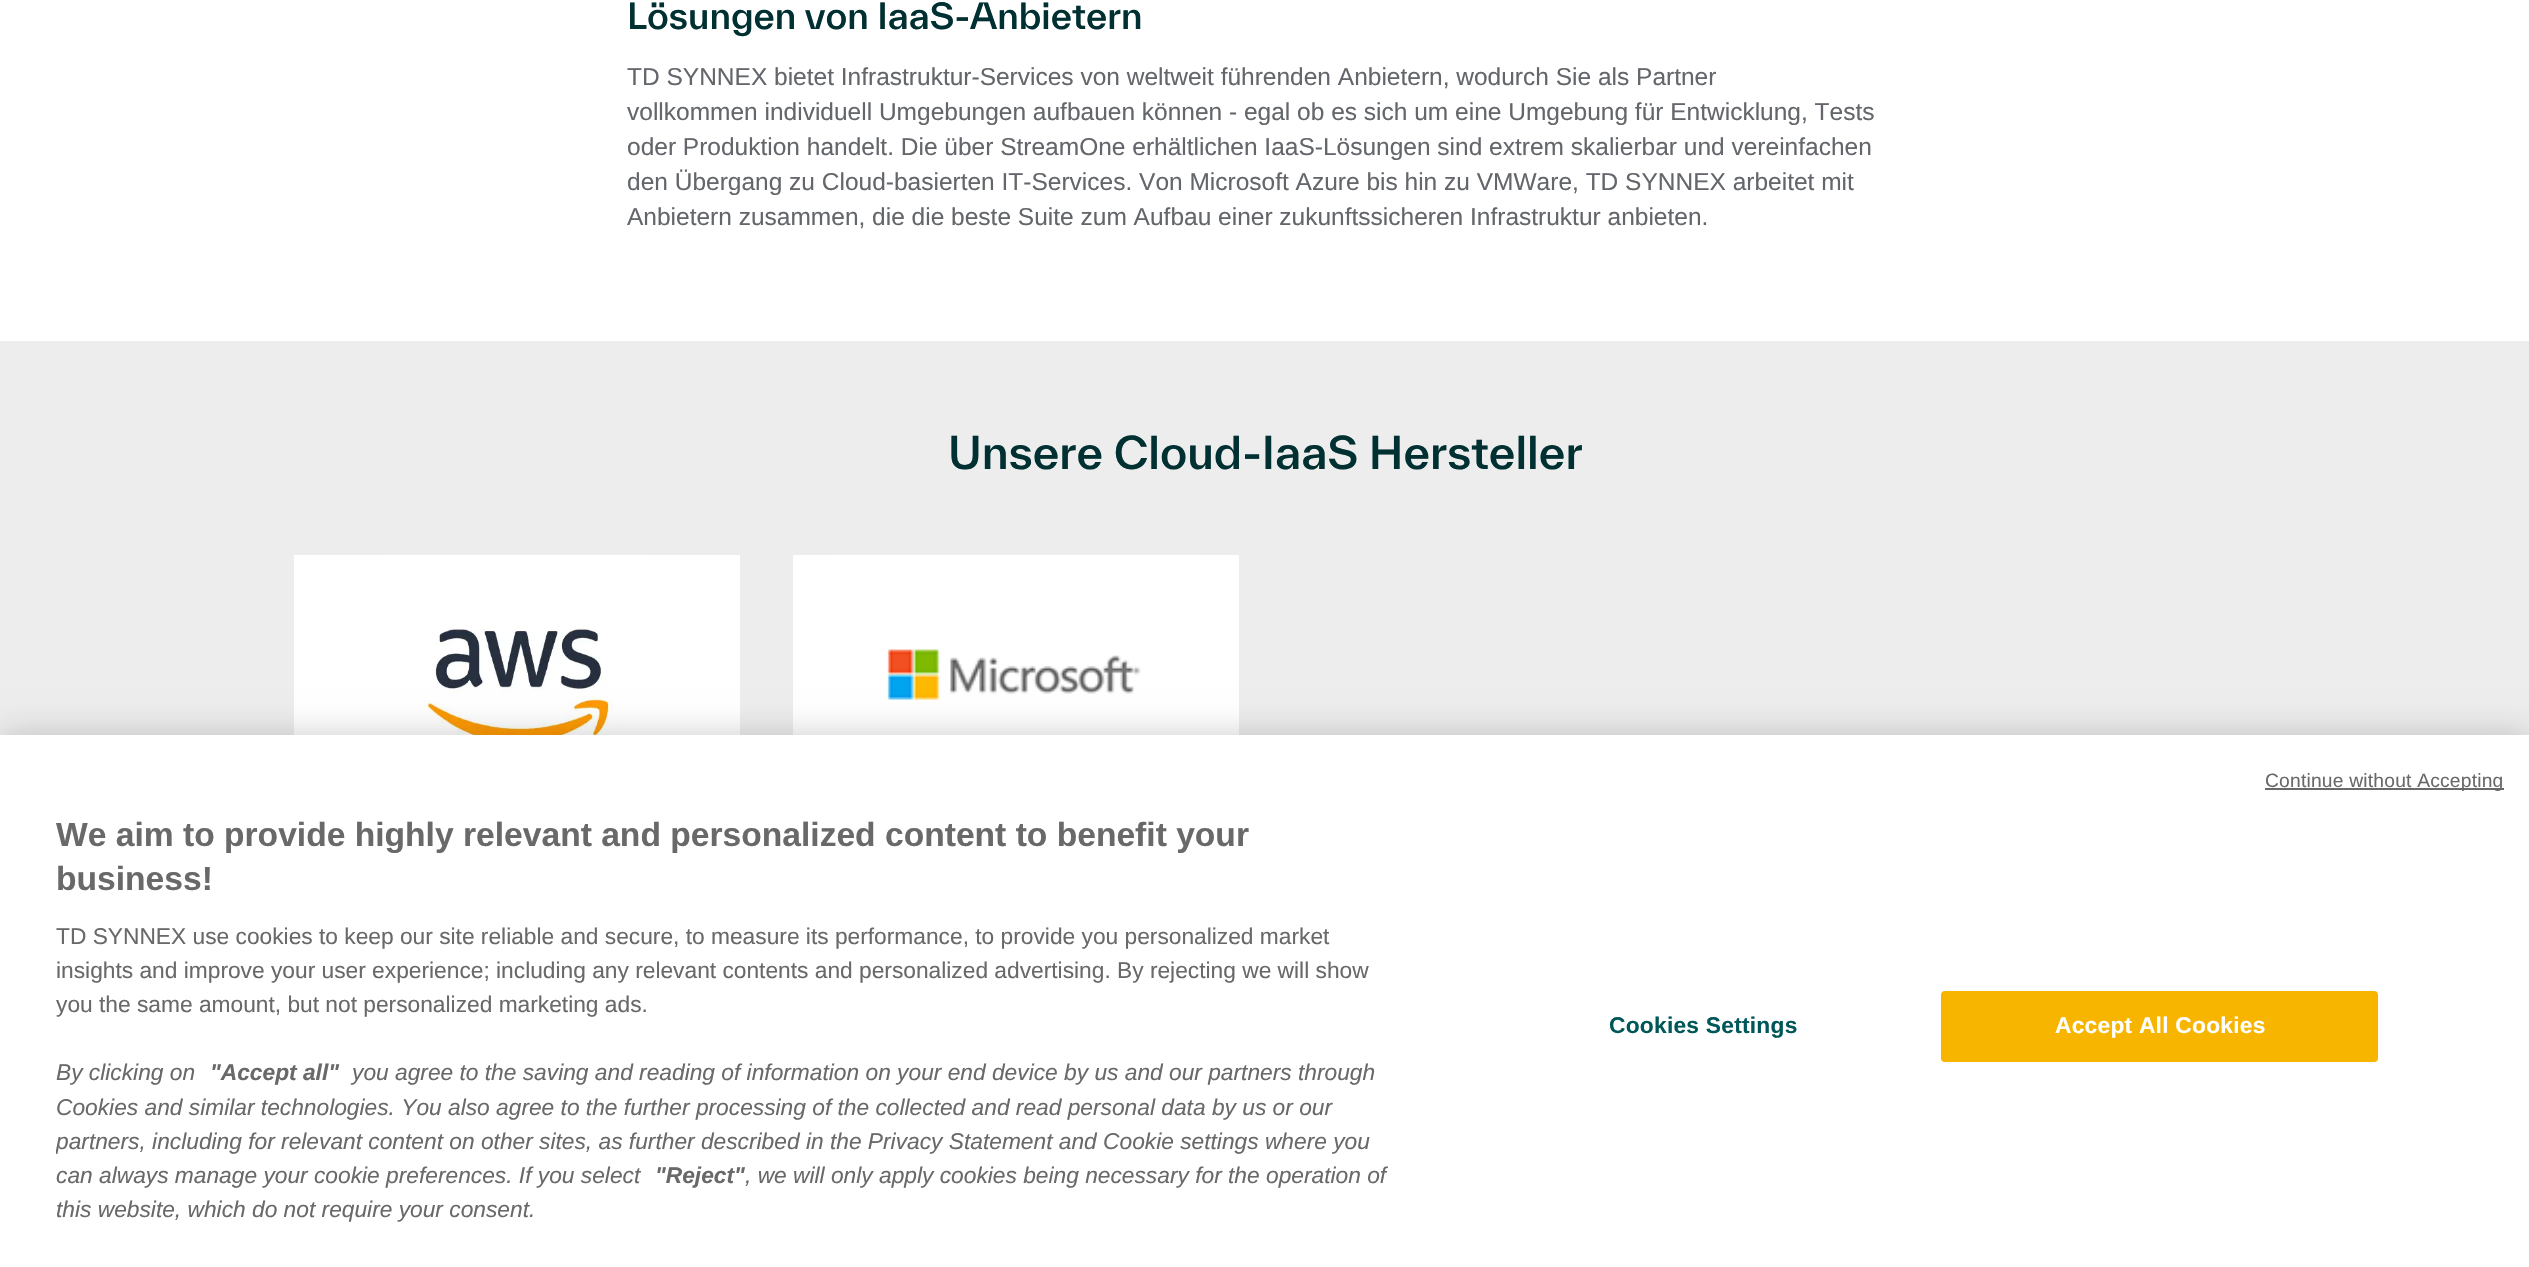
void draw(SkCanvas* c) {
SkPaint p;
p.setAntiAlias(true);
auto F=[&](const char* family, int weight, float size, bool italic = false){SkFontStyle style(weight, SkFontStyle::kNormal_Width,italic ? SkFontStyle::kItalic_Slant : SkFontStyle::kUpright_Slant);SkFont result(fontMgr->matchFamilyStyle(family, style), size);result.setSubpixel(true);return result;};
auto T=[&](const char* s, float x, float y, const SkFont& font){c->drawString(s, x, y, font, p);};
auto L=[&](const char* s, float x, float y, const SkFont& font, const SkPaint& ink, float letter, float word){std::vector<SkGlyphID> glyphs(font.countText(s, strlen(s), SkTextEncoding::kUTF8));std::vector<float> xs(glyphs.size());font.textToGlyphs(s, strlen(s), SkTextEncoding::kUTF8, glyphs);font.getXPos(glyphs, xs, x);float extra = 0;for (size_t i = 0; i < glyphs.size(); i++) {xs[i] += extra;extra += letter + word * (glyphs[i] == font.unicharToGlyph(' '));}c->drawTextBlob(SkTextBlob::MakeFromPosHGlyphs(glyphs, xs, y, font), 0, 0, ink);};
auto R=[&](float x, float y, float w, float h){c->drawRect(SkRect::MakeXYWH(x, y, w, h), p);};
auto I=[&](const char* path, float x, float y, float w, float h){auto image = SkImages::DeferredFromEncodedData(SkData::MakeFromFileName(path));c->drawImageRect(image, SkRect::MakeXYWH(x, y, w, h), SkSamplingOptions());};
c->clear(0xffffffff);
auto f1 = F("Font",500,35);
p.setColor(0xff003031);
T("Lösungen von IaaS-Anbietern",627,29,f1);
auto f2 = F("Liberation Sans",400,24.5);
p.setColor(0xff63666a);
T("TD SYNNEX bietet Infrastruktur-Services von weltweit führenden Anbietern, wodurch Sie als Partner",627,85,f2);
T("vollkommen individuell Umgebungen aufbauen können - egal ob es sich um eine Umgebung für Entwicklung, Tests",627,120,f2);
T("oder Produktion handelt. Die über StreamOne erhältlichen IaaS-Lösungen sind extrem skalierbar und vereinfachen",627,155,f2);
T("den Übergang zu Cloud-basierten IT-Services. Von Microsoft Azure bis hin zu VMWare, TD SYNNEX arbeitet mit",627,190,f2);
T("Anbietern zusammen, die die beste Suite zum Aufbau einer zukunftssicheren Infrastruktur anbieten.",627,225,f2);
p.setColor(0xffeeeded);
R(0,341,2529,394);
auto f3 = F("Font",500,43.75);
p.setColor(0xff003031);
T("Unsere Cloud-IaaS Hersteller",948,469,f3);
p.setColor(0xffffffff);
R(294,555,446,180);
I("1.png",387,554,262,181);
R(793,555,446,180);
I("2.png",837,554,360,181);
p.setColor(0x33000000);
p.setMaskFilter(SkMaskFilter::MakeBlur(kNormal_SkBlurStyle, 16));
c->drawRect(SkRect::MakeXYWH(0,735,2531,532),p);
p.setMaskFilter(nullptr);
p.setColor(0xffffffff);
R(0,735,2529,532);
p.setColor(0xff696969);
R(2265,788,239,2);
auto f4 = F("Liberation Sans",400,19.25);
L("Continue without Accepting",2265,787,f4,p,.2,0);
auto f5 = F("Liberation Sans",700,33.6);
T("We aim to provide highly relevant and personalized content to benefit your",56,846,f5);
T("business!",56,890,f5);
auto f6 = F("Liberation Sans",400,22.75);
T("TD SYNNEX use cookies to keep our site reliable and secure, to measure its performance, to provide you personalized market",56,944,f6);
T("insights and improve your user experience; including any relevant contents and personalized advertising. By rejecting we will show",56,978,f6);
T("you the same amount, but not personalized marketing ads.",56,1012,f6);
auto f7 = F("Liberation Sans",400,22.75,true);
T("By clicking on",56,1080,f7);
auto f8 = F("Liberation Sans",700,22.75,true);
T("\"Accept all\"",210,1080,f8);
T("you agree to the saving and reading of information on your end device by us and our partners through",352,1080,f7);
T("Cookies and similar technologies. You also agree to the further processing of the collected and read personal data by us or our",56,1115,f7);
c->save();
c->clipRect(SkRect::MakeXYWH(56,814,1335,436));
T("partners, including for relevant content on other sites, as further described in the Privacy Statement and Cookie settings where you",56,1149,f7);
c->restore();
T("can always manage your cookie preferences. If you select",56,1183,f7);
T("\"Reject\"",655,1183,f8);
T(", we will only apply cookies being necessary for the operation of",745,1183,f7);
T("this website, which do not require your consent.",56,1217,f7);
auto f9 = F("Liberation Sans",700,22.75);
p.setColor(0xff005758);
L("Cookies Settings",1609,1033,f9,p,.25,0);
p.setColor(0xfff7b500);
c->drawRoundRect(SkRect::MakeXYWH(1942,992,435,69),3,3,p);
p.setStroke(true);
p.setStrokeWidth(2);
c->drawRoundRect(SkRect::MakeXYWH(1942,992,435,69),3,3,p);
p.setStroke(false);
p.setColor(0xffffffff);
L("Accept All Cookies",2055,1033,f9,p,.25,0);
}
